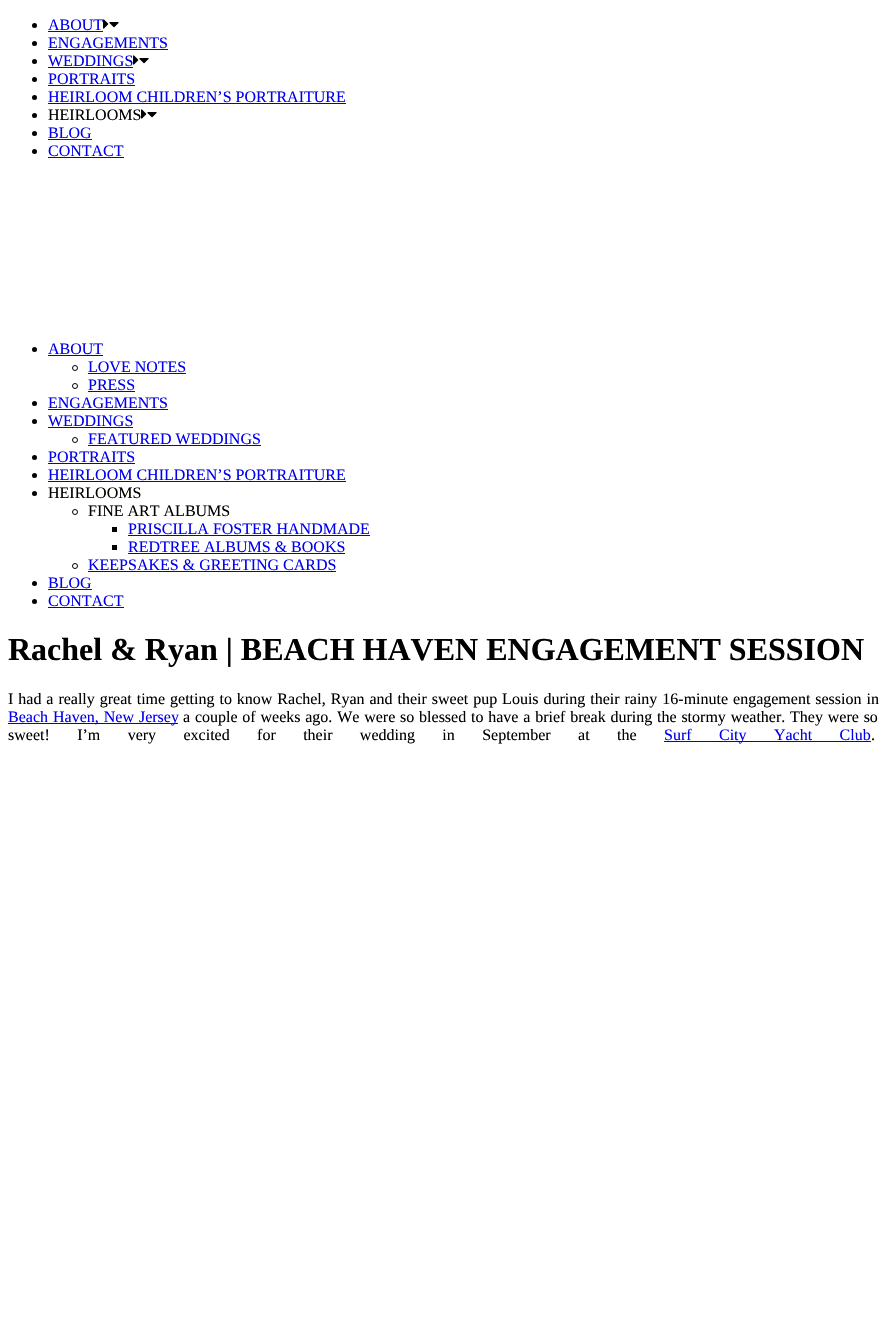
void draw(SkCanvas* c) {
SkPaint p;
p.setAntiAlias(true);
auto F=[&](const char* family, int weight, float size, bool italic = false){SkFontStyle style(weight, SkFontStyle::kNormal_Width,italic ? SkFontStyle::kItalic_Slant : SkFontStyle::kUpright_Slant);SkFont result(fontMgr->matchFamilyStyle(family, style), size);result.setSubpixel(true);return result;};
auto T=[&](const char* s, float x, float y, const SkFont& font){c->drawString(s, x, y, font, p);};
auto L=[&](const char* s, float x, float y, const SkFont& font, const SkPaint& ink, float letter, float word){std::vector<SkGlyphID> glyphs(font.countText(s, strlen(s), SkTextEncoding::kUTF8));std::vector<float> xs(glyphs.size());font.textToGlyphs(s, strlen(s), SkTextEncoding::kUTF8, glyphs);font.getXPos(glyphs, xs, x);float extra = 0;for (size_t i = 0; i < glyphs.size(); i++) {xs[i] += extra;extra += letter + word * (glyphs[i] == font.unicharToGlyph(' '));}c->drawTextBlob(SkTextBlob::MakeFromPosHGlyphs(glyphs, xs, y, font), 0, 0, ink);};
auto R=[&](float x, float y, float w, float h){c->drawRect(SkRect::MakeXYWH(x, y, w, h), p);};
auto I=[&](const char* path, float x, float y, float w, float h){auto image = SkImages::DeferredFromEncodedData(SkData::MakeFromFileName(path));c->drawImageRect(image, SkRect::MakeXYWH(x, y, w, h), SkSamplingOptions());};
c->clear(0xffffffff);
p.setColor(0xff000000);
c->drawCircle(34.5,25.5,2.5,p);
auto f1 = F("Liberation Serif",400,16);
p.setColor(0xff0000ee);
T("ABOUT",48,30,f1);
R(48,31,55,1);
I("1.png",103,19,6,10);
I("2.png",109,22,10,6);
p.setColor(0xff000000);
c->drawCircle(34.5,43.5,2.5,p);
p.setColor(0xff0000ee);
T("ENGAGEMENTS",48,48,f1);
R(48,49,120,1);
p.setColor(0xff000000);
c->drawCircle(34.5,61.5,2.5,p);
p.setColor(0xff0000ee);
T("WEDDINGS",48,66,f1);
R(48,67,85,1);
I("1.png",133,55,6,10);
I("2.png",139,58,10,6);
p.setColor(0xff000000);
c->drawCircle(34.5,79.5,2.5,p);
p.setColor(0xff0000ee);
T("PORTRAITS",48,84,f1);
R(48,85,87,1);
p.setColor(0xff000000);
c->drawCircle(34.5,97.5,2.5,p);
p.setColor(0xff0000ee);
T("HEIRLOOM CHILDREN’S PORTRAITURE",48,102,f1);
R(48,103,298,1);
p.setColor(0xff000000);
c->drawCircle(34.5,115.5,2.5,p);
T("HEIRLOOMS",48,120,f1);
I("1.png",141,109,6,10);
I("2.png",147,112,10,6);
c->drawCircle(34.5,133.5,2.5,p);
p.setColor(0xff0000ee);
T("BLOG",48,138,f1);
R(48,139,44,1);
p.setColor(0xff000000);
c->drawCircle(34.5,151.5,2.5,p);
p.setColor(0xff0000ee);
T("CONTACT",48,156,f1);
R(48,157,76,1);
p.setColor(0xff000000);
c->drawCircle(34.5,349.5,2.5,p);
p.setColor(0xff0000ee);
T("ABOUT",48,354,f1);
R(48,355,55,1);
p.setStroke(true);
p.setStrokeWidth(1);
p.setColor(0xff000000);
c->drawCircle(75,368,2.5,p);
p.setStroke(false);
p.setColor(0xff0000ee);
T("LOVE NOTES",88,372,f1);
R(88,373,98,1);
p.setStroke(true);
p.setColor(0xff000000);
c->drawCircle(75,386,2.5,p);
p.setStroke(false);
p.setColor(0xff0000ee);
T("PRESS",88,390,f1);
R(88,391,47,1);
p.setColor(0xff000000);
c->drawCircle(34.5,403.5,2.5,p);
p.setColor(0xff0000ee);
T("ENGAGEMENTS",48,408,f1);
R(48,409,120,1);
p.setColor(0xff000000);
c->drawCircle(34.5,421.5,2.5,p);
p.setColor(0xff0000ee);
T("WEDDINGS",48,426,f1);
R(48,427,85,1);
p.setStroke(true);
p.setColor(0xff000000);
c->drawCircle(75,440,2.5,p);
p.setStroke(false);
p.setColor(0xff0000ee);
T("FEATURED WEDDINGS",88,444,f1);
R(88,445,173,1);
p.setColor(0xff000000);
c->drawCircle(34.5,457.5,2.5,p);
p.setColor(0xff0000ee);
T("PORTRAITS",48,462,f1);
R(48,463,87,1);
p.setColor(0xff000000);
c->drawCircle(34.5,475.5,2.5,p);
p.setColor(0xff0000ee);
T("HEIRLOOM CHILDREN’S PORTRAITURE",48,480,f1);
R(48,481,298,1);
p.setColor(0xff000000);
c->drawCircle(34.5,493.5,2.5,p);
T("HEIRLOOMS",48,498,f1);
p.setStroke(true);
c->drawCircle(75,512,2.5,p);
p.setStroke(false);
T("FINE ART ALBUMS",88,516,f1);
R(112,527,5,5);
p.setColor(0xff0000ee);
T("PRISCILLA FOSTER HANDMADE",128,534,f1);
R(128,535,242,1);
p.setColor(0xff000000);
R(112,545,5,5);
p.setColor(0xff0000ee);
T("REDTREE ALBUMS & BOOKS",128,552,f1);
R(128,553,217,1);
p.setStroke(true);
p.setColor(0xff000000);
c->drawCircle(75,566,2.5,p);
p.setStroke(false);
p.setColor(0xff0000ee);
T("KEEPSAKES & GREETING CARDS",88,570,f1);
R(88,571,248,1);
p.setColor(0xff000000);
c->drawCircle(34.5,583.5,2.5,p);
p.setColor(0xff0000ee);
T("BLOG",48,588,f1);
R(48,589,44,1);
p.setColor(0xff000000);
c->drawCircle(34.5,601.5,2.5,p);
p.setColor(0xff0000ee);
T("CONTACT",48,606,f1);
R(48,607,76,1);
auto f2 = F("Liberation Serif",700,32);
p.setColor(0xff000000);
T("Rachel & Ryan | BEACH HAVEN ENGAGEMENT SESSION",8,660,f2);
L("I had a really great time getting to know Rachel, Ryan and their sweet pup Louis during their rainy 16-minute engagement session in",8,704,f1,p,0,.95);
p.setColor(0xff0000ee);
R(8,723,170,1);
L("Beach Haven, New Jersey",8,722,f1,p,0,1);
p.setColor(0xff000000);
L("a couple of weeks ago. We were so blessed to have a brief break during the stormy weather. They were so",183,722,f1,p,0,.8);
L("sweet! I’m very excited for their wedding in September at the",8,740,f1,p,0,23.4);
p.setColor(0xff0000ee);
R(664,741,207,1);
L("Surf City Yacht Club",664,740,f1,p,0,23.4);
p.setColor(0xff000000);
T(".",871,740,f1);
}
